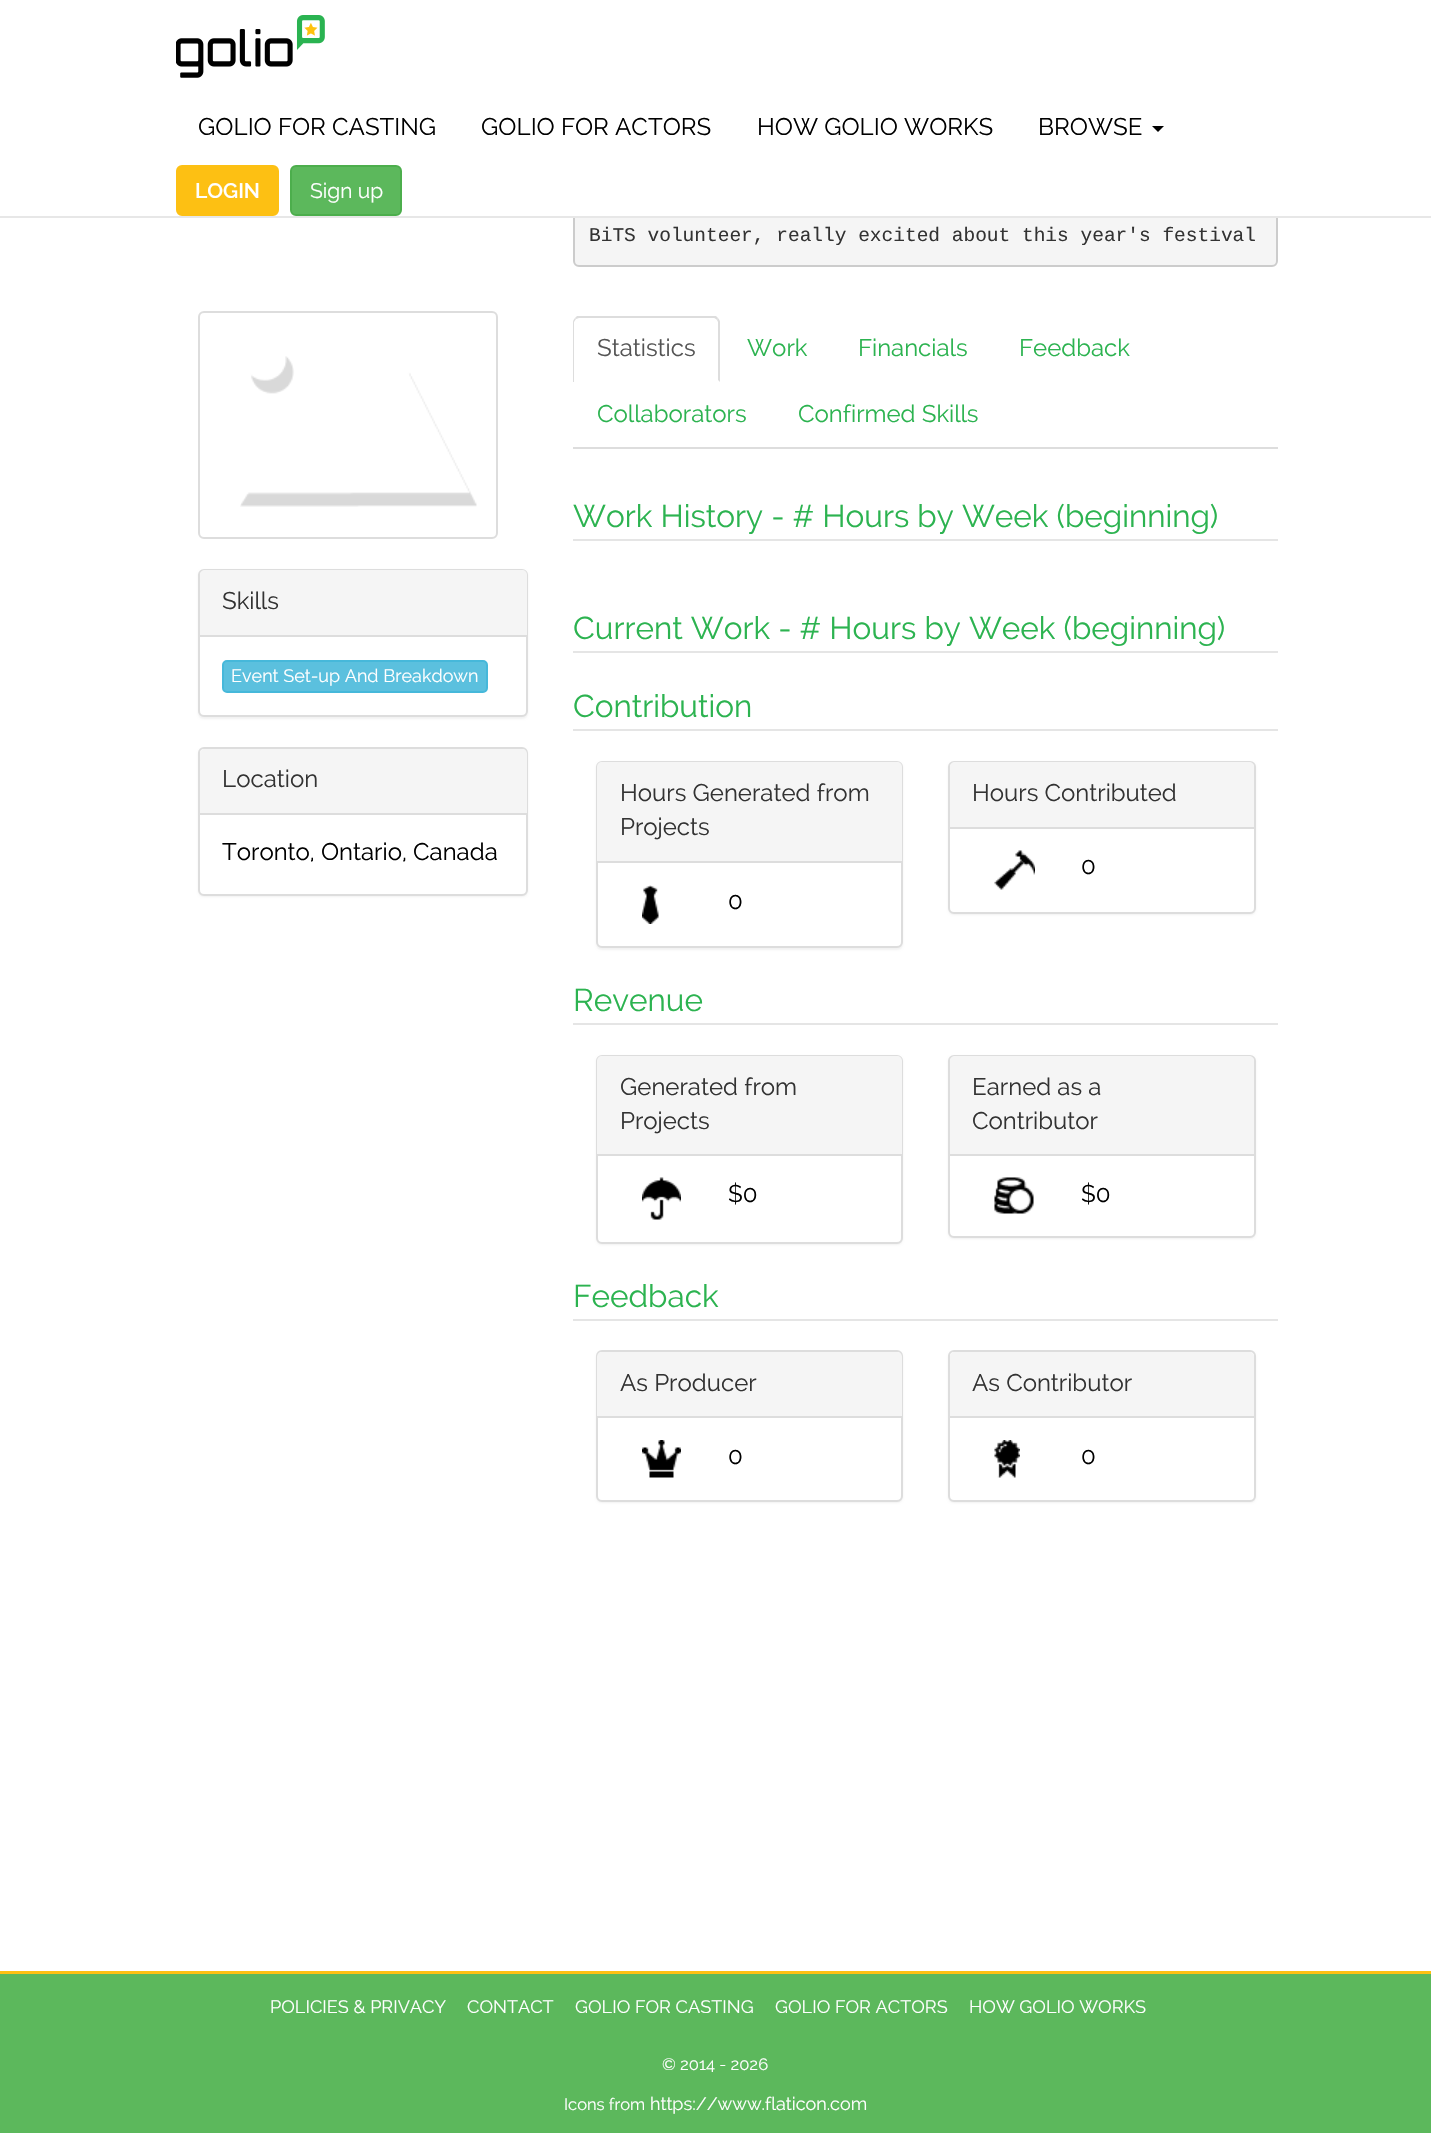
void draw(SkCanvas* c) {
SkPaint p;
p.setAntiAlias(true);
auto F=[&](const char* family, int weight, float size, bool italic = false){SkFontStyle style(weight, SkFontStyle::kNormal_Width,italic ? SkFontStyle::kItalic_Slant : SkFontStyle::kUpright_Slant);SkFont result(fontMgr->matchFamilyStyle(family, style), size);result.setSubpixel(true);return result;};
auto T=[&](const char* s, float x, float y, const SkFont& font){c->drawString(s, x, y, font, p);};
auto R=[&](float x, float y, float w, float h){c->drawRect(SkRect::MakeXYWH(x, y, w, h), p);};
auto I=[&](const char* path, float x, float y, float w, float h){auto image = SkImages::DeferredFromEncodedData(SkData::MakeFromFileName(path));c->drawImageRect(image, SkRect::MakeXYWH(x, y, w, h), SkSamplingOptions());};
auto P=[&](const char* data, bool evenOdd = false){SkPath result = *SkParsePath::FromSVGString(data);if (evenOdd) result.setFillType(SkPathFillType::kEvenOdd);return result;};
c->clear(0xffffffff);
p.setColor(0xfff5f5f5);
c->drawRoundRect(SkRect::MakeXYWH(574,208,703,58),5,5,p);
p.setStroke(true);
p.setStrokeWidth(2);
p.setColor(0xffcccccc);
c->drawRoundRect(SkRect::MakeXYWH(574,208,703,58),5,5,p);
p.setStroke(false);
p.setColor(0xffffffff);
R(573,207,705,9);
p.setColor(0xffe7e7e7);
R(0,216,1431,2);
I("1.png",176,15,149,63);
auto f1 = F("Raleway",400,24);
p.setColor(0xff000000);
T("GOLIO FOR CASTING",198,135,f1);
T("GOLIO FOR ACTORS",481,135,f1);
T("HOW GOLIO WORKS",757,135,f1);
T("BROWSE",1038,135,f1);
c->drawPath(P("M1152 126h12l-6 6z"),p);
p.setColor(0xfffdc013);
c->drawRoundRect(SkRect::MakeXYWH(177,166,101,49),5,5,p);
p.setStroke(true);
c->drawRoundRect(SkRect::MakeXYWH(177,166,101,49),5,5,p);
auto f2 = F("Raleway",600,21);
p.setStroke(false);
p.setColor(0xffffffff);
T("LOGIN",195,198,f2);
p.setColor(0xff5cb85c);
c->drawRoundRect(SkRect::MakeXYWH(291,166,110,49),5,5,p);
p.setStroke(true);
p.setColor(0xff4cae4c);
c->drawRoundRect(SkRect::MakeXYWH(291,166,110,49),5,5,p);
auto f3 = F("Raleway",400,21);
p.setStroke(false);
p.setColor(0xffffffff);
T("Sign up",310,198,f3);
p.setStroke(true);
p.setColor(0xffdddddd);
c->drawRoundRect(SkRect::MakeXYWH(199,312,298,226),5,5,p);
I("2.png",240,356,237,151);
p.setStroke(false);
p.setColor(0x0d000000);
p.setMaskFilter(SkMaskFilter::MakeBlur(kNormal_SkBlurStyle, 1));
c->drawRoundRect(SkRect::MakeXYWH(198,570,330,149),6,6,p);
p.setMaskFilter(nullptr);
p.setColor(0xffffffff);
c->drawRoundRect(SkRect::MakeXYWH(199,570,328,146),5,5,p);
p.setStroke(true);
p.setColor(0xffdddddd);
c->drawRoundRect(SkRect::MakeXYWH(199,570,328,146),5,5,p);
p.setStroke(false);
p.setColor(0xfff5f5f5);
c->drawPath(P("M205 570h317c3 0 5 2 5 5v61h-327v-61c0-3 2-5 5-5z"),p);
p.setColor(0xffdddddd);
R(200,635,327,2);
p.setColor(0xff333333);
T("Skills",222,609,f1);
p.setColor(0xff5bc0de);
c->drawRoundRect(SkRect::MakeXYWH(223,661,264,31),4,4,p);
p.setStroke(true);
p.setColor(0xff46b8da);
c->drawRoundRect(SkRect::MakeXYWH(223,661,264,31),4,4,p);
auto f4 = F("Raleway",400,18);
p.setStroke(false);
p.setColor(0xffffffff);
T("Event Set-up And Breakdown",231,682,f4);
p.setColor(0x0d000000);
p.setMaskFilter(SkMaskFilter::MakeBlur(kNormal_SkBlurStyle, 1));
c->drawRoundRect(SkRect::MakeXYWH(198,749,330,148),6,6,p);
p.setMaskFilter(nullptr);
p.setColor(0xffffffff);
c->drawRoundRect(SkRect::MakeXYWH(199,748,328,147),5,5,p);
p.setStroke(true);
p.setColor(0xffdddddd);
c->drawRoundRect(SkRect::MakeXYWH(199,748,328,147),5,5,p);
p.setStroke(false);
p.setColor(0xfff5f5f5);
c->drawPath(P("M205 749h317c3 0 5 2 5 5v61h-327v-61c0-3 2-5 5-5z"),p);
p.setColor(0xffdddddd);
R(200,813,327,2);
p.setColor(0xff333333);
T("Location",222,787,f1);
p.setColor(0xff000000);
T("Toronto, Ontario, Canada",222,860,f1);
auto f5 = F("Liberation Mono",400,19.5);
p.setColor(0xff333333);
T("BiTS volunteer, really excited about this year's festival",589,241,f5);
p.setColor(0xffdddddd);
R(573,447,705,2);
c->drawPath(P("M579 318l-3 1l-1-1l2-2h139l2 2l-1 2c-1-1-2-2-3-2z"),p);
c->drawPath(P("M720 382v-60c0-1-1-3-2-4l-1 2l1 2v58z"),p);
c->drawPath(P("M573 322v60h1v-1v-59l2-3l-1-1c-1 1-2 3-2 4z"),p);
p.setColor(0xff555555);
T("Statistics",597,356,f1);
p.setColor(0xff2cb350);
T("Work",747,356,f1);
T("Financials",858,356,f1);
T("Feedback",1019,356,f1);
T("Collaborators",597,422,f1);
T("Confirmed Skills",798,422,f1);
p.setColor(0xffe5e5e5);
R(573,539,705,2);
auto f6 = F("Raleway",400,31.5);
p.setColor(0xff2cb350);
T("Work History - # Hours by Week (beginning)",573,527,f6);
p.setColor(0xffe5e5e5);
R(573,651,705,2);
p.setColor(0xff2cb350);
T("Current Work - # Hours by Week (beginning)",573,639,f6);
p.setColor(0xffe5e5e5);
R(573,729,705,2);
p.setColor(0xff2cb350);
T("Contribution",573,717,f6);
p.setColor(0x0d000000);
p.setMaskFilter(SkMaskFilter::MakeBlur(kNormal_SkBlurStyle, 1));
c->drawRoundRect(SkRect::MakeXYWH(596,762,307,188),6,6,p);
p.setMaskFilter(nullptr);
p.setColor(0xffffffff);
c->drawRoundRect(SkRect::MakeXYWH(597,762,305,185),5,5,p);
p.setStroke(true);
p.setColor(0xffdddddd);
c->drawRoundRect(SkRect::MakeXYWH(597,762,305,185),5,5,p);
p.setStroke(false);
p.setColor(0xfff5f5f5);
c->drawPath(P("M602 762h295c3 0 5 2 5 5v96h-305v-96c0-3 2-5 5-5z"),p);
p.setColor(0xffdddddd);
R(597,861,305,2);
p.setColor(0xff333333);
T("Hours Generated from",620,801,f1);
T("Projects",620,835,f1);
I("3.png",642,885,17,39);
p.setColor(0xff000000);
T("0",728,909,f1);
p.setColor(0x0d000000);
p.setMaskFilter(SkMaskFilter::MakeBlur(kNormal_SkBlurStyle, 1));
c->drawRoundRect(SkRect::MakeXYWH(948,762,308,153),6,6,p);
p.setMaskFilter(nullptr);
p.setColor(0xffffffff);
c->drawRoundRect(SkRect::MakeXYWH(949,762,306,151),5,5,p);
p.setStroke(true);
p.setColor(0xffdddddd);
c->drawRoundRect(SkRect::MakeXYWH(949,762,306,151),5,5,p);
p.setStroke(false);
p.setColor(0xfff5f5f5);
c->drawPath(P("M955 762h294c3 0 5 2 5 5v61h-304v-61c0-3 2-5 5-5z"),p);
p.setColor(0xffdddddd);
R(950,827,304,2);
p.setColor(0xff333333);
T("Hours Contributed",972,801,f1);
I("4.png",994,850,41,40);
p.setColor(0xff000000);
T("0",1081,874,f1);
p.setColor(0xffe5e5e5);
R(573,1023,705,2);
p.setColor(0xff2cb350);
T("Revenue",573,1011,f6);
p.setColor(0x0d000000);
p.setMaskFilter(SkMaskFilter::MakeBlur(kNormal_SkBlurStyle, 1));
c->drawRoundRect(SkRect::MakeXYWH(596,1056,307,189),6,6,p);
p.setMaskFilter(nullptr);
p.setColor(0xffffffff);
c->drawRoundRect(SkRect::MakeXYWH(597,1056,305,187),5,5,p);
p.setStroke(true);
p.setColor(0xffdddddd);
c->drawRoundRect(SkRect::MakeXYWH(597,1056,305,187),5,5,p);
p.setStroke(false);
p.setColor(0xfff5f5f5);
c->drawPath(P("M602 1056h295c3 0 5 2 5 5v94h-305v-94c0-3 2-5 5-5z"),p);
p.setColor(0xffdddddd);
R(597,1154,305,2);
p.setColor(0xff333333);
T("Generated from",620,1095,f1);
T("Projects",620,1129,f1);
I("5.png",642,1177,39,43);
p.setColor(0xff000000);
T("$0",728,1202,f1);
p.setColor(0x0d000000);
p.setMaskFilter(SkMaskFilter::MakeBlur(kNormal_SkBlurStyle, 1));
c->drawRoundRect(SkRect::MakeXYWH(948,1056,308,183),6,6,p);
p.setMaskFilter(nullptr);
p.setColor(0xffffffff);
c->drawRoundRect(SkRect::MakeXYWH(949,1056,306,181),5,5,p);
p.setStroke(true);
p.setColor(0xffdddddd);
c->drawRoundRect(SkRect::MakeXYWH(949,1056,306,181),5,5,p);
p.setStroke(false);
p.setColor(0xfff5f5f5);
c->drawPath(P("M955 1056h294c3 0 5 2 5 5v94h-304v-94c0-3 2-5 5-5z"),p);
p.setColor(0xffdddddd);
R(950,1154,304,2);
p.setColor(0xff333333);
T("Earned as a",972,1095,f1);
T("Contributor",972,1129,f1);
I("6.png",994,1177,40,37);
p.setColor(0xff000000);
T("$0",1081,1202,f1);
p.setColor(0xffe5e5e5);
R(573,1319,705,2);
p.setColor(0xff2cb350);
T("Feedback",573,1307,f6);
p.setColor(0x0d000000);
p.setMaskFilter(SkMaskFilter::MakeBlur(kNormal_SkBlurStyle, 1));
c->drawRoundRect(SkRect::MakeXYWH(596,1352,307,151),6,6,p);
p.setMaskFilter(nullptr);
p.setColor(0xffffffff);
c->drawRoundRect(SkRect::MakeXYWH(597,1351,305,150),5,5,p);
p.setStroke(true);
p.setColor(0xffdddddd);
c->drawRoundRect(SkRect::MakeXYWH(597,1351,305,150),5,5,p);
p.setStroke(false);
p.setColor(0xfff5f5f5);
c->drawPath(P("M602 1352h295c3 0 5 2 5 5v61h-305v-61c0-3 2-5 5-5z"),p);
p.setColor(0xffdddddd);
R(597,1416,305,2);
p.setColor(0xff333333);
T("As Producer",620,1391,f1);
I("7.png",642,1440,39,38);
p.setColor(0xff000000);
T("0",728,1464,f1);
p.setColor(0x0d000000);
p.setMaskFilter(SkMaskFilter::MakeBlur(kNormal_SkBlurStyle, 1));
c->drawRoundRect(SkRect::MakeXYWH(948,1352,308,151),6,6,p);
p.setMaskFilter(nullptr);
p.setColor(0xffffffff);
c->drawRoundRect(SkRect::MakeXYWH(949,1351,306,150),5,5,p);
p.setStroke(true);
p.setColor(0xffdddddd);
c->drawRoundRect(SkRect::MakeXYWH(949,1351,306,150),5,5,p);
p.setStroke(false);
p.setColor(0xfff5f5f5);
c->drawPath(P("M955 1352h294c3 0 5 2 5 5v61h-304v-61c0-3 2-5 5-5z"),p);
p.setColor(0xffdddddd);
R(950,1416,304,2);
p.setColor(0xff333333);
T("As Contributor",972,1391,f1);
I("8.png",994,1440,26,38);
p.setColor(0xff000000);
T("0",1081,1464,f1);
p.setColor(0xff5cb85c);
R(0,1974,1431,159);
p.setColor(0xfffdc013);
R(0,1971,1431,3);
p.setColor(0xffffffff);
T("POLICIES & PRIVACY",270,2013,f4);
T("CONTACT",467,2013,f4);
T("GOLIO FOR CASTING",575,2013,f4);
T("GOLIO FOR ACTORS",775,2013,f4);
T("HOW GOLIO WORKS",969,2013,f4);
auto f7 = F("Raleway",400,16.5);
T("© 2014 - 2026",662,2070,f7);
T("Icons from",564,2110,f7);
T("https://www.flaticon.com",650,2110,f4);
}
